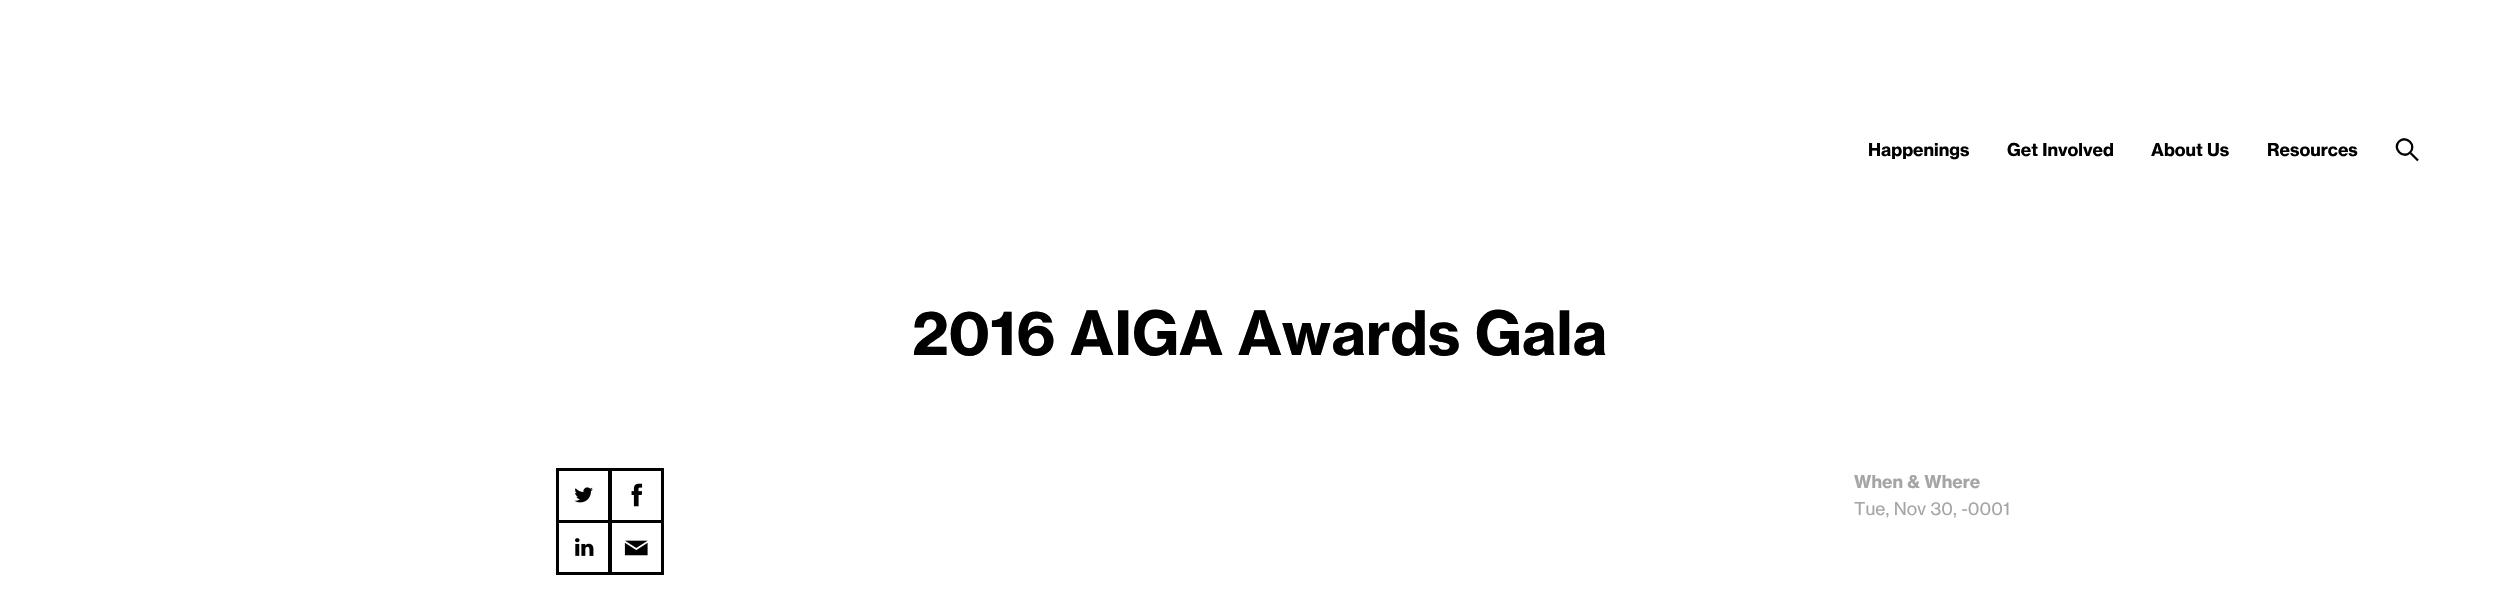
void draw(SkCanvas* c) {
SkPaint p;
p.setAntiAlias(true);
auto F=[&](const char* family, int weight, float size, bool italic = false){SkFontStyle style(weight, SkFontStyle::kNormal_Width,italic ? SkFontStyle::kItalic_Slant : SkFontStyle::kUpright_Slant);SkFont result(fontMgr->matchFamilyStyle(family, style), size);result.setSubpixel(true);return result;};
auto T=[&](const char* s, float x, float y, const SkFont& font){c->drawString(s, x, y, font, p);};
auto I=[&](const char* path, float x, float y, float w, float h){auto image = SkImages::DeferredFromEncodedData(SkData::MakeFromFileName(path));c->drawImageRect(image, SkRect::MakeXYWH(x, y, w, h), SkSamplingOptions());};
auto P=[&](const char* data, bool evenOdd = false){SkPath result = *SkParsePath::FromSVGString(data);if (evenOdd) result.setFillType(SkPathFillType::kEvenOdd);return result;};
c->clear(0xffffffff);
auto f1 = F("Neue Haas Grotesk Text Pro",700,17.5);
p.setColor(0xff000000);
T("Happenings",1868,156,f1);
T("Get Involved",2007,156,f1);
T("About Us",2151,156,f1);
T("Resources",2267,156,f1);
p.setStroke(true);
p.setStrokeWidth(2.3);
p.setStrokeCap(SkPaint::kRound_Cap);
p.setStrokeJoin(SkPaint::kRound_Join);
c->drawPath(P("M2399 141.5c7.5-7 18 4 11 11c-7 7-18-4-11-11z"),p);
p.setStrokeCap(SkPaint::kButt_Cap);
c->drawPath(P("M2410.5 153l7.5 7.5"),p);
auto f2 = F("Neue Haas Grotesk Text Pro",700,60);
p.setStroke(false);
T("2016 AIGA Awards Gala",912,355,f2);
I("1.png",574,487,19,16);
p.setStroke(true);
p.setStrokeWidth(3);
p.setStrokeJoin(SkPaint::kMiter_Join);
c->drawRect(SkRect::MakeXYWH(557.5,469.5,52,52),p);
I("2.png",631,483,12,24);
c->drawRect(SkRect::MakeXYWH(610.5,469.5,52,52),p);
I("3.png",575,538,19,18);
c->drawRect(SkRect::MakeXYWH(557.5,521.5,52,52),p);
I("4.png",624,540,24,16);
c->drawRect(SkRect::MakeXYWH(610.5,521.5,52,52),p);
p.setStroke(false);
p.setColor(0xffa5a5a5);
T("When & Where",1854,488,f1);
auto f3 = F("Neue Haas Grotesk Text Pro",400,17.5);
T("Tue, Nov 30, -0001",1854,515,f3);
}
